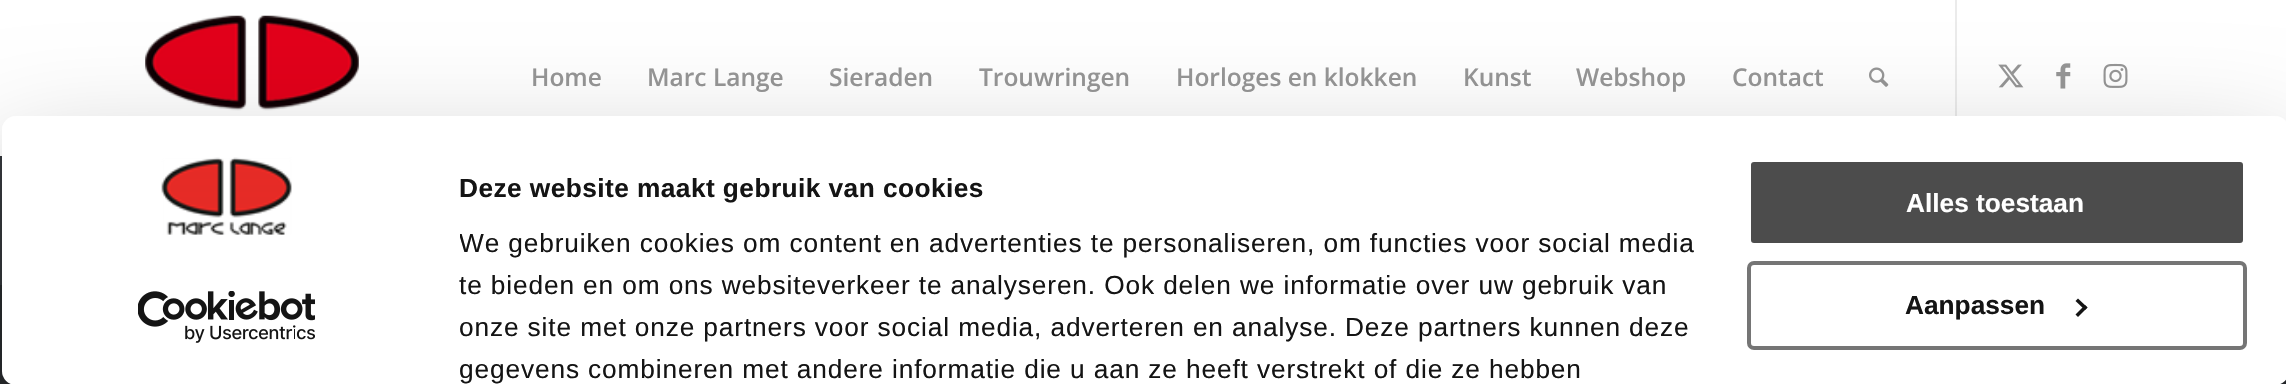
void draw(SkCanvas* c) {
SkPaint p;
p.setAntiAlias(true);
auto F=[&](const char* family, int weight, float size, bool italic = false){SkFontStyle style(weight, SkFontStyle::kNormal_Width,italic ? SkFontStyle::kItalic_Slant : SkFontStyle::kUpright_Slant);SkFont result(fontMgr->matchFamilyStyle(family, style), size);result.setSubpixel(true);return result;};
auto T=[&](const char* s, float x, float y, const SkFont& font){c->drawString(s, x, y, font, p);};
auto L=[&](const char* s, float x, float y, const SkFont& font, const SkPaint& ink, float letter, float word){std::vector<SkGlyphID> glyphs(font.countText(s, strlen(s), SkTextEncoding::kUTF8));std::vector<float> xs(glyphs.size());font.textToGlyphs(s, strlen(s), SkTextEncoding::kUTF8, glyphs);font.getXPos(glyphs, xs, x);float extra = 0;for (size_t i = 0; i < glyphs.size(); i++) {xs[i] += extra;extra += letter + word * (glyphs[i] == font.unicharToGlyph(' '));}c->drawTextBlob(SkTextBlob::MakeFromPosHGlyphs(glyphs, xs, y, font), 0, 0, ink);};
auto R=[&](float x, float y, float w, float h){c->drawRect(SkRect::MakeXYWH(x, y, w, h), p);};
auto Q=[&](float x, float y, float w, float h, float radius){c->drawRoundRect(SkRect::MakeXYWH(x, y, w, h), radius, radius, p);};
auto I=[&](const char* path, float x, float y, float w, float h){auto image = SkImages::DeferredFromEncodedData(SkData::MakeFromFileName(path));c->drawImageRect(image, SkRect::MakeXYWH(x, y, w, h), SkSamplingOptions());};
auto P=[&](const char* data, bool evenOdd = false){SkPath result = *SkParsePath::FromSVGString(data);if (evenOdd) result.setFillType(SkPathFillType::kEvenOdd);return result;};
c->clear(0xff35383c);
p.setColor(0xffffffff);
R(0,0,2286,156);
I("1.png",145,15,214,96);
p.setColor(0xffebebeb);
R(1955,0,2,116);
auto f1 = F("Open Sans",600,24.5);
p.setColor(0xff969696);
T("Home",531,86,f1);
T("Marc Lange",647,86,f1);
T("Sieraden",829,86,f1);
T("Trouwringen",979,86,f1);
T("Horloges en klokken",1176,86,f1);
T("Kunst",1463,86,f1);
T("Webshop",1576,86,f1);
T("Contact",1732,86,f1);
I("2.png",1869,67,20,20);
I("3.png",1998,64,26,24);
I("4.png",2056,63,15,26);
I("5.png",2103,63,25,25);
p.setColor(0xff282b2e);
R(0,285,2286,99);
c->save();
c->clipPath(P("M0 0h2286v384h-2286zm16 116h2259c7.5 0 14 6.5 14 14v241c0 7.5-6.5 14-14 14h-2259c-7.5 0-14-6.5-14-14v-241c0-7.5 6.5-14 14-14z",true),true);
p.setColor(0x4d000000);
p.setMaskFilter(SkMaskFilter::MakeBlur(kNormal_SkBlurStyle, 61));
c->drawRoundRect(SkRect::MakeXYWH(2,168,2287,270),14,14,p);
p.setMaskFilter(nullptr);
c->restore();
p.setColor(0xffffffff);
Q(2,116,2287,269,14);
I("6.png",161,157,131,78);
I("7.png",138,291,177,52);
auto f2 = F("Liberation Sans",700,26.25);
p.setColor(0xff141414);
L("Deze website maakt gebruik van cookies",459,197,f2,p,.45,0);
c->save();
c->clipRect(SkRect::MakeXYWH(460,168,1276,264));
auto f3 = F("Liberation Sans",400,26.25);
L("We gebruiken cookies om content en advertenties te personaliseren, om functies voor social media",459,252,f3,p,.88,0);
c->restore();
L("te bieden en om ons websiteverkeer te analyseren. Ook delen we informatie over uw gebruik van",459,294,f3,p,.88,0);
c->save();
c->clipRect(SkRect::MakeXYWH(460,168,1276,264));
L("onze site met onze partners voor social media, adverteren en analyse. Deze partners kunnen deze",459,336,f3,p,.88,0);
L("gegevens combineren met andere informatie die u aan ze heeft verstrekt of die ze hebben",459,378,f3,p,.88,0);
c->restore();
p.setColor(0xff4c4c4c);
c->drawRoundRect(SkRect::MakeXYWH(1749,160,496,85),5,5,p);
p.setStroke(true);
p.setStrokeWidth(4);
p.setColor(0xffffffff);
c->drawRoundRect(SkRect::MakeXYWH(1749,160,496,85),5,5,p);
p.setStroke(false);
T("Alles toestaan",1906,212,f2);
p.setStroke(true);
p.setColor(0xff757575);
c->drawRoundRect(SkRect::MakeXYWH(1749,263,496,85),5,5,p);
p.setStroke(false);
p.setColor(0xff141414);
T("Aanpassen",1905,314,f2);
c->drawPath(P("M2078 298.5l9.5 9l-2.5 2.5l-9.5-9z"),p);
c->drawPath(P("M2085 305l2.5 2.5l-9.5 9.5l-2.5-2.5z"),p);
}
